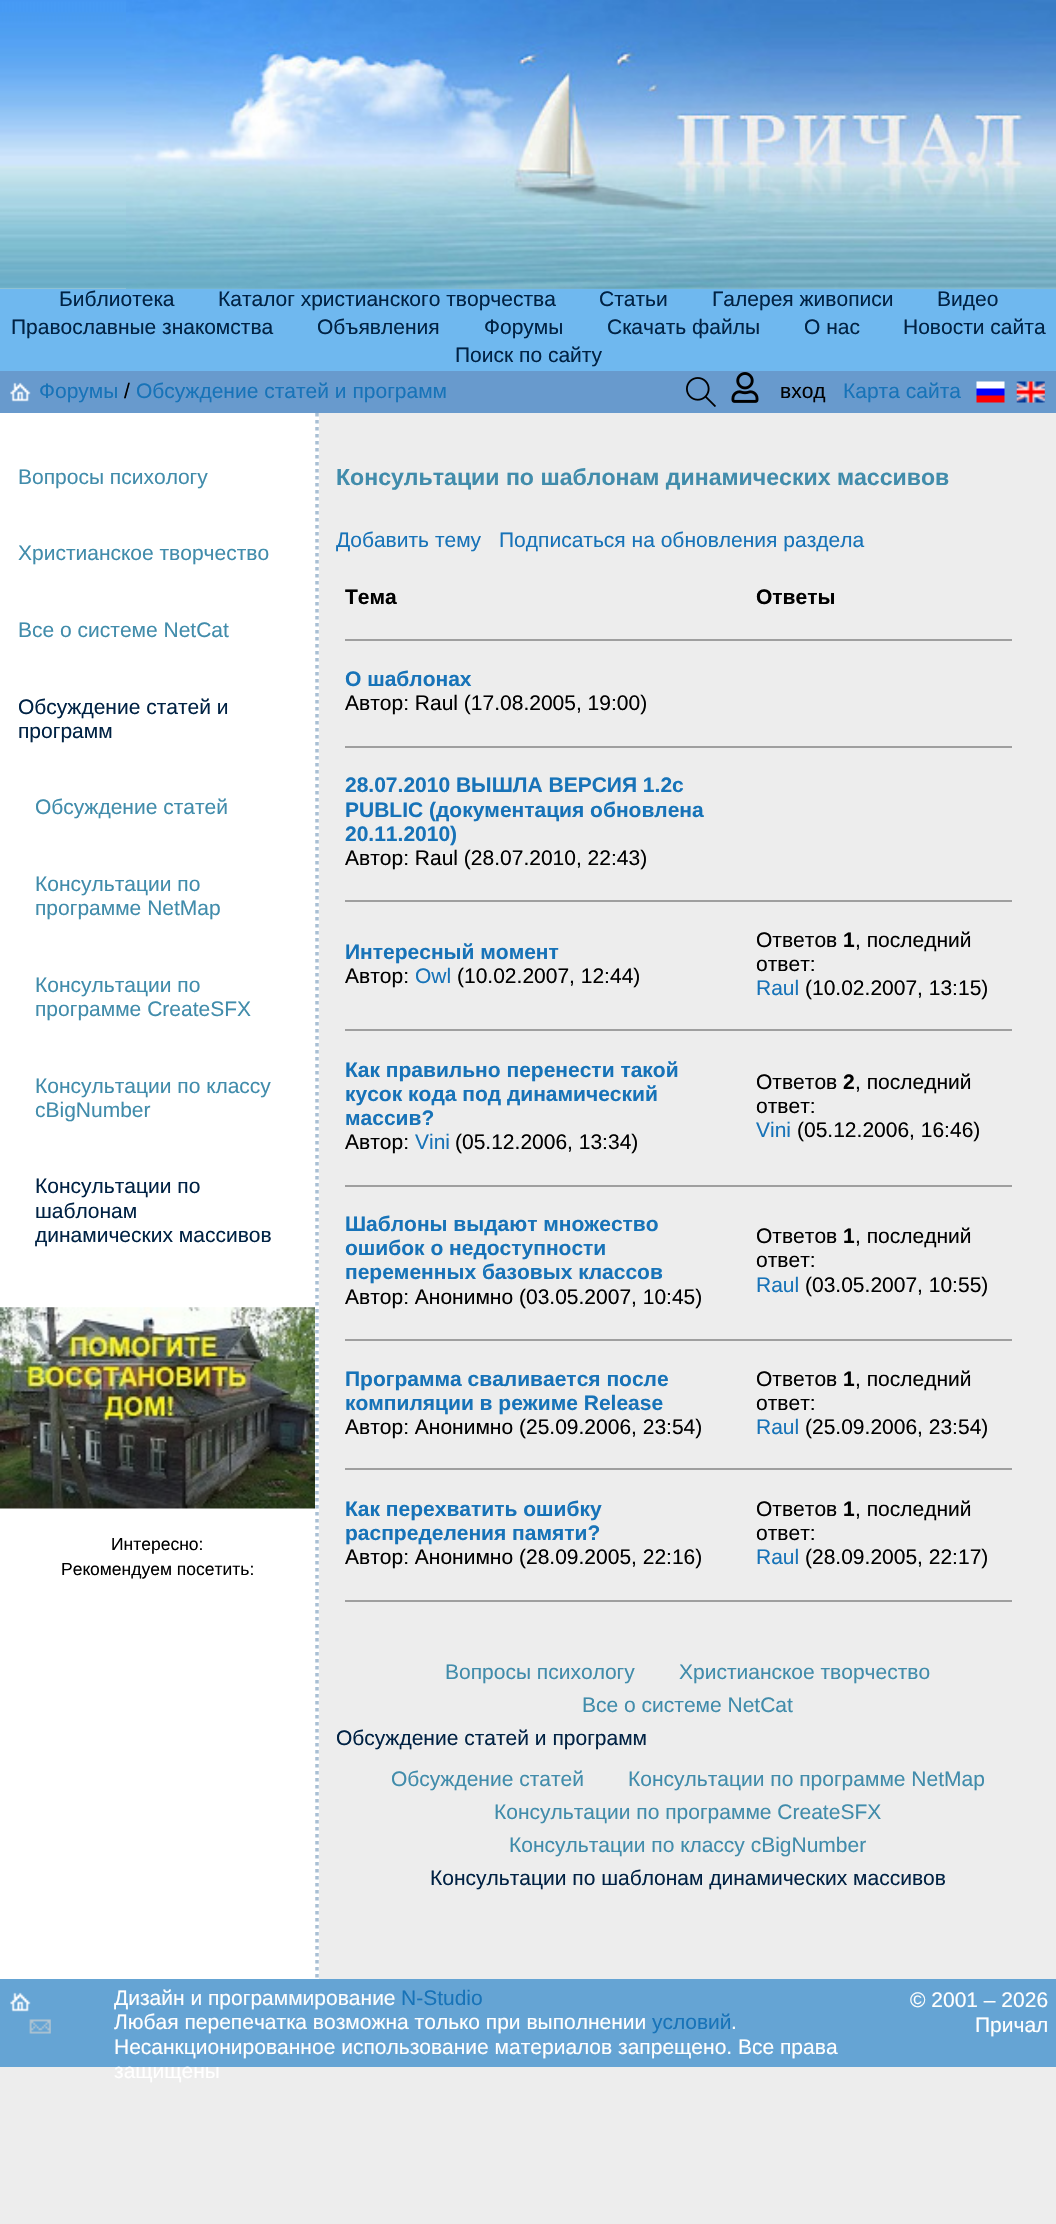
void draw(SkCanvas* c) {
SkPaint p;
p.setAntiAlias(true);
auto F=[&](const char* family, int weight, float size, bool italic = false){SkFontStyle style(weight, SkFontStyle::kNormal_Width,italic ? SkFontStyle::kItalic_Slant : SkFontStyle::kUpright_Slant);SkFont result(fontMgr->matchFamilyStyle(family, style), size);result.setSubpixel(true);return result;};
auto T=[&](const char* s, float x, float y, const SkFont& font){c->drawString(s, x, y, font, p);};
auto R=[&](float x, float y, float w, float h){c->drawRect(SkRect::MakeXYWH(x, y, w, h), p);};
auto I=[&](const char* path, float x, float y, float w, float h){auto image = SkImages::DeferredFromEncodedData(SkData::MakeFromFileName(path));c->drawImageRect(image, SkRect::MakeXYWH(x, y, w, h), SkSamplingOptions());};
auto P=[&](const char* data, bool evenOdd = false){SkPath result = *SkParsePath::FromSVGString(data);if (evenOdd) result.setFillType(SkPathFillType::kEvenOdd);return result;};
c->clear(0xffededed);
I("1.png",0,0,1056,289);
I("2.png",126,0,930,289);
p.setColor(0xff6fb8ef);
R(0,289,1056,82);
auto f1 = F("Liberation Sans",400,21);
p.setColor(0xff002244);
T("Библиотека",59,306,f1);
T("Каталог христианского творчества",218,306,f1);
T("Статьи",599,306,f1);
T("Галерея живописи",712,306,f1);
T("Видео",937,306,f1);
T("Православные знакомства",11,334,f1);
T("Объявления",317,334,f1);
T("Форумы",484,334,f1);
T("Скачать файлы",607,334,f1);
T("О нас",804,334,f1);
T("Новости сайта",903,334,f1);
T("Поиск по сайту",455,362,f1);
p.setColor(0xff689acd);
R(0,371,1056,42);
I("3.png",10,382,21,20);
p.setColor(0xff1773b8);
T("Форумы",39,398,f1);
p.setColor(0xff000000);
T("/",124,398,f1);
p.setColor(0xff1773b8);
T("Обсуждение статей и программ",136,398,f1);
I("4.png",686,377,30,30);
I("5.png",731,372,28,31);
p.setColor(0xff000000);
T("вход",780,398,f1);
p.setColor(0xff1773b8);
T("Карта сайта",843,398,f1);
I("6.png",976,381,29,22);
I("7.png",1016,381,29,22);
p.setColor(0xffffffff);
R(0,413,319,1566);
p.setStroke(true);
p.setStrokeWidth(3.5);
p.setColor(0xffa9bfd4);
p.setPathEffect(SkDashPathEffect::Make({{3.5f,3.5f}}, 0));
c->drawPath(P("M317 413v1566"),p);
p.setPathEffect(nullptr);
p.setStroke(false);
p.setColor(0xff418cab);
T("Вопросы психологу",18,484,f1);
T("Христианcкое творчество",18,560,f1);
T("Все о системе NetCat",18,637,f1);
p.setColor(0xff002244);
T("Обсуждение статей и",18,714,f1);
T("программ",18,738,f1);
p.setColor(0xff418cab);
T("Обсуждение статей",35,814,f1);
T("Консультации по",35,891,f1);
T("программе NetMap",35,915,f1);
T("Консультации по",35,992,f1);
T("программе CreateSFX",35,1016,f1);
T("Консультации по классу",35,1093,f1);
T("cBigNumber",35,1117,f1);
p.setColor(0xff002244);
T("Консультации по",35,1193,f1);
T("шаблонам",35,1218,f1);
T("динамических массивов",35,1242,f1);
I("8.png",0,1307,315,202);
auto f2 = F("Liberation Sans",400,17.5);
p.setColor(0xff000000);
T("Интересно:",111,1550,f2);
T("Рекомендуем посетить:",61,1575,f2);
auto f3 = F("Liberation Sans",700,23.1);
p.setColor(0xff418cab);
T("Консультации по шаблонам динамических массивов",336,485,f3);
p.setColor(0xff1773b8);
T("Добавить тему",336,547,f1);
T("Подписаться на обновления раздела",499,547,f1);
auto f4 = F("Liberation Sans",700,21);
p.setColor(0xff000000);
T("Тема",345,604,f4);
T("Ответы",756,604,f4);
p.setColor(0xff9f9f9f);
R(345,639,668,2);
p.setColor(0xffeeeeee);
R(1012,639,2,2);
p.setColor(0xff1773b8);
T("О шаблонах",345,686,f4);
p.setColor(0xff000000);
T("Автор: Raul (17.08.2005, 19:00)",345,710,f1);
p.setColor(0xff9f9f9f);
R(345,746,668,2);
p.setColor(0xffeeeeee);
R(1012,746,2,2);
p.setColor(0xff1773b8);
T("28.07.2010 ВЫШЛА ВЕРСИЯ 1.2c",345,792,f4);
T("PUBLIC (документация обновлена",345,817,f4);
T("20.11.2010)",345,841,f4);
p.setColor(0xff000000);
T("Автор: Raul (28.07.2010, 22:43)",345,865,f1);
p.setColor(0xff9f9f9f);
R(345,900,668,2);
p.setColor(0xffeeeeee);
R(1012,900,2,2);
p.setColor(0xff1773b8);
T("Интересный момент",345,959,f4);
p.setColor(0xff000000);
T("Автор:",345,983,f1);
p.setColor(0xff1773b8);
T("Owl",415,983,f1);
p.setColor(0xff000000);
T("(10.02.2007, 12:44)",457,983,f1);
T("Ответов",756,947,f1);
T("1",843,947,f4);
T(", последний",855,947,f1);
T("ответ:",756,971,f1);
p.setColor(0xff1773b8);
T("Raul",756,995,f1);
p.setColor(0xff000000);
T("(10.02.2007, 13:15)",805,995,f1);
p.setColor(0xff9f9f9f);
R(345,1029,668,2);
p.setColor(0xffeeeeee);
R(1012,1029,2,2);
p.setColor(0xff1773b8);
T("Как правильно перенести такой",345,1077,f4);
T("кусок кода под динамический",345,1101,f4);
T("массив?",345,1125,f4);
p.setColor(0xff000000);
T("Автор:",345,1149,f1);
p.setColor(0xff1773b8);
T("Vini",415,1149,f1);
p.setColor(0xff000000);
T("(05.12.2006, 13:34)",455,1149,f1);
T("Ответов",756,1089,f1);
T("2",843,1089,f4);
T(", последний",855,1089,f1);
T("ответ:",756,1113,f1);
p.setColor(0xff1773b8);
T("Vini",756,1137,f1);
p.setColor(0xff000000);
T("(05.12.2006, 16:46)",797,1137,f1);
p.setColor(0xff9f9f9f);
R(345,1185,668,2);
p.setColor(0xffeeeeee);
R(1012,1185,2,2);
p.setColor(0xff1773b8);
T("Шаблоны выдают множество",345,1231,f4);
T("ошибок о недоступности",345,1255,f4);
T("переменных базовых классов",345,1279,f4);
p.setColor(0xff000000);
T("Автор: Анонимно (03.05.2007, 10:45)",345,1304,f1);
T("Ответов",756,1243,f1);
T("1",843,1243,f4);
T(", последний",855,1243,f1);
T("ответ:",756,1267,f1);
p.setColor(0xff1773b8);
T("Raul",756,1292,f1);
p.setColor(0xff000000);
T("(03.05.2007, 10:55)",805,1292,f1);
p.setColor(0xff9f9f9f);
R(345,1339,668,2);
p.setColor(0xffeeeeee);
R(1012,1339,2,2);
p.setColor(0xff1773b8);
T("Программа сваливается после",345,1386,f4);
T("компиляции в режиме Release",345,1410,f4);
p.setColor(0xff000000);
T("Автор: Анонимно (25.09.2006, 23:54)",345,1434,f1);
T("Ответов",756,1386,f1);
T("1",843,1386,f4);
T(", последний",855,1386,f1);
T("ответ:",756,1410,f1);
p.setColor(0xff1773b8);
T("Raul",756,1434,f1);
p.setColor(0xff000000);
T("(25.09.2006, 23:54)",805,1434,f1);
p.setColor(0xff9f9f9f);
R(345,1468,668,2);
p.setColor(0xffeeeeee);
R(1012,1468,2,2);
p.setColor(0xff1773b8);
T("Как перехватить ошибку",345,1516,f4);
T("распределения памяти?",345,1540,f4);
p.setColor(0xff000000);
T("Автор: Анонимно (28.09.2005, 22:16)",345,1564,f1);
T("Ответов",756,1516,f1);
T("1",843,1516,f4);
T(", последний",855,1516,f1);
T("ответ:",756,1540,f1);
p.setColor(0xff1773b8);
T("Raul",756,1564,f1);
p.setColor(0xff000000);
T("(28.09.2005, 22:17)",805,1564,f1);
p.setColor(0xff9f9f9f);
R(345,1600,668,2);
p.setColor(0xffeeeeee);
R(1012,1600,2,2);
p.setColor(0xff418cab);
T("Вопросы психологу",445,1679,f1);
T("Христианcкое творчество",679,1679,f1);
T("Все о системе NetCat",582,1712,f1);
p.setColor(0xff002244);
T("Обсуждение статей и программ",336,1745,f1);
p.setColor(0xff418cab);
T("Обсуждение статей",391,1786,f1);
T("Консультации по программе NetMap",628,1786,f1);
T("Консультации по программе CreateSFX",494,1819,f1);
T("Консультации по классу cBigNumber",509,1852,f1);
p.setColor(0xff002244);
T("Консультации по шаблонам динамических массивов",430,1885,f1);
p.setColor(0xff65a4d4);
R(0,1979,1056,88);
I("9.png",10,1992,21,20);
I("10.png",29,2019,22,15);
p.setColor(0xffffffff);
T("Дизайн и программирование",114,2005,f1);
p.setColor(0xff1773b8);
T("N-Studio",401,2005,f1);
p.setColor(0xffffffff);
T("Любая перепечатка возможна только при выполнении",114,2029,f1);
p.setColor(0xff1773b8);
T("условий",652,2029,f1);
p.setColor(0xffffffff);
T(".",731,2029,f1);
T("Несанкционированное использование материалов запрещено. Все права",114,2054,f1);
T("защищены",114,2078,f1);
T("© 2001 – 2026",910,2007,f1);
T("Причал",975,2032,f1);
}
